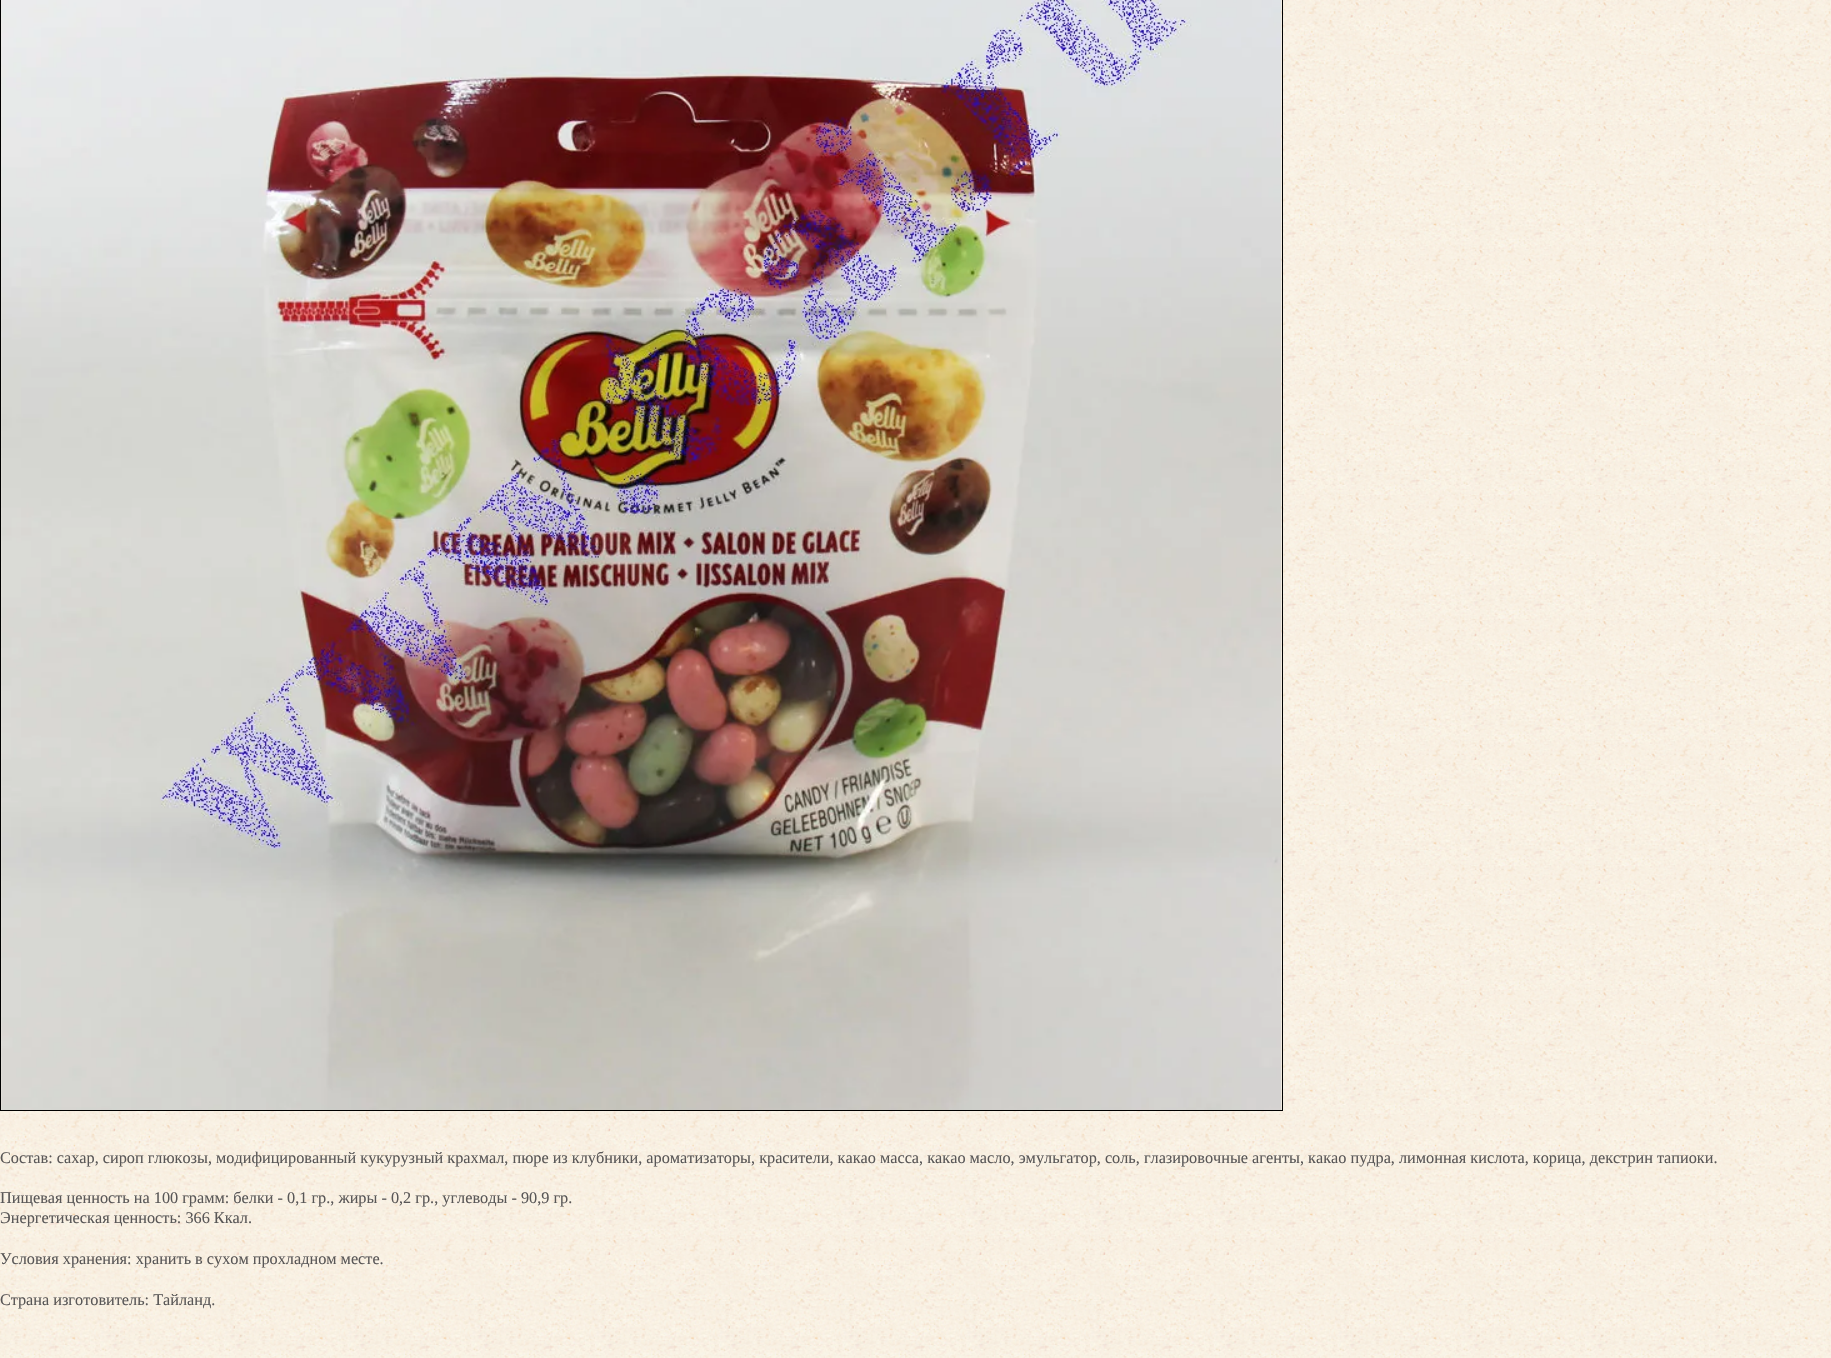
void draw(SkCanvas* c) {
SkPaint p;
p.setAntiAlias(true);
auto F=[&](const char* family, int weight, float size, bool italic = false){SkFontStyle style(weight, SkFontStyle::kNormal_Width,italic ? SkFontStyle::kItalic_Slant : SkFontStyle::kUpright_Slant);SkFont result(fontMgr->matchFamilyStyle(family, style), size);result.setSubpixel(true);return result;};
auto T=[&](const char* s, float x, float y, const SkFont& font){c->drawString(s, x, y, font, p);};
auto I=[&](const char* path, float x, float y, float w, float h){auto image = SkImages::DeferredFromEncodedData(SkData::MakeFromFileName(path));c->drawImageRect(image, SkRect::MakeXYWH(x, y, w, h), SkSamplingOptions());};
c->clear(0xffffffff);
I("1.png",0,0,1831,1358);
p.setStroke(true);
p.setStrokeWidth(1);
p.setColor(0xff000000);
c->drawRect(SkRect::MakeXYWH(.5,-.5,1282,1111),p);
I("2.png",1,0,1281,1110);
auto f1 = F("Liberation Serif",400,16.25);
p.setStroke(false);
p.setColor(0xff595757);
T("Состав: сахар, сироп глюкозы, модифицированный кукурузный крахмал, пюре из клубники, ароматизаторы, красители, какао масса, какао масло, эмульгатор, соль, глазировочные агенты, какао пудра, лимонная кислота, корица, декстрин тапиоки.",0,1163,f1);
T("Пищевая ценность на 100 грамм: белки - 0,1 гр., жиры - 0,2 гр., углеводы - 90,9 гр.",0,1203,f1);
T("Энергетическая ценность: 366 Ккал.",0,1223,f1);
T("Условия хранения: хранить в сухом прохладном месте.",0,1264,f1);
T("Страна изготовитель: Тайланд.",0,1305,f1);
}
